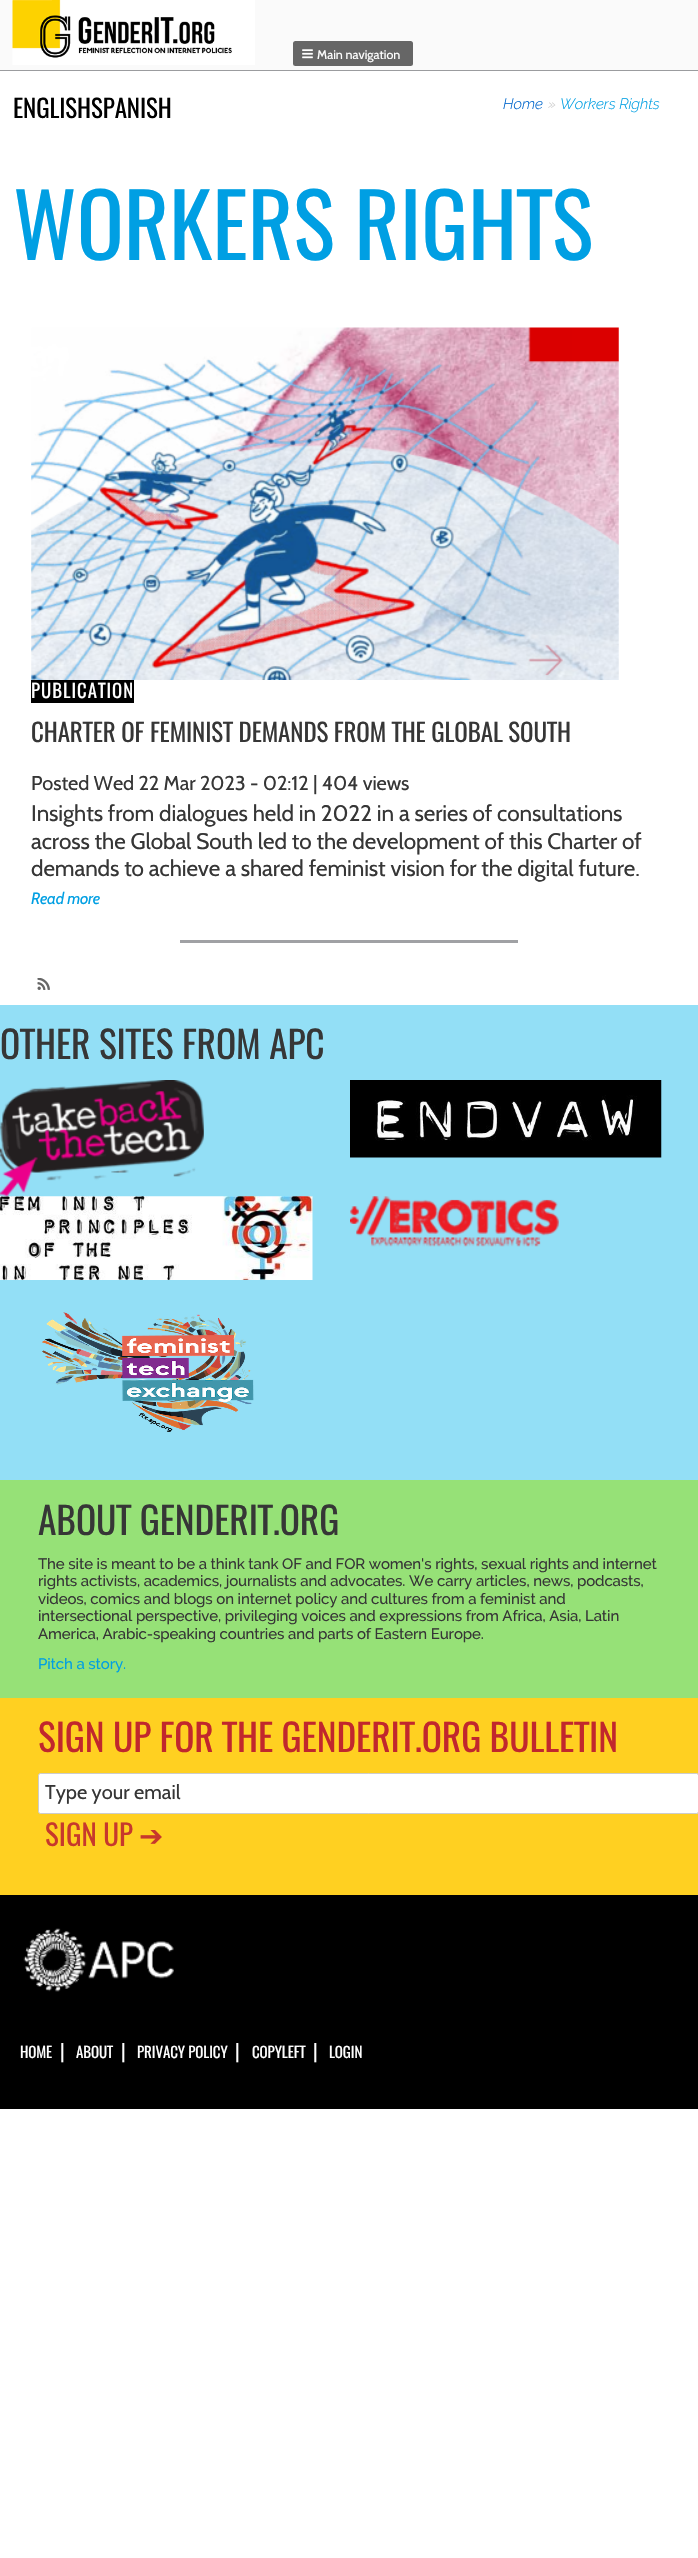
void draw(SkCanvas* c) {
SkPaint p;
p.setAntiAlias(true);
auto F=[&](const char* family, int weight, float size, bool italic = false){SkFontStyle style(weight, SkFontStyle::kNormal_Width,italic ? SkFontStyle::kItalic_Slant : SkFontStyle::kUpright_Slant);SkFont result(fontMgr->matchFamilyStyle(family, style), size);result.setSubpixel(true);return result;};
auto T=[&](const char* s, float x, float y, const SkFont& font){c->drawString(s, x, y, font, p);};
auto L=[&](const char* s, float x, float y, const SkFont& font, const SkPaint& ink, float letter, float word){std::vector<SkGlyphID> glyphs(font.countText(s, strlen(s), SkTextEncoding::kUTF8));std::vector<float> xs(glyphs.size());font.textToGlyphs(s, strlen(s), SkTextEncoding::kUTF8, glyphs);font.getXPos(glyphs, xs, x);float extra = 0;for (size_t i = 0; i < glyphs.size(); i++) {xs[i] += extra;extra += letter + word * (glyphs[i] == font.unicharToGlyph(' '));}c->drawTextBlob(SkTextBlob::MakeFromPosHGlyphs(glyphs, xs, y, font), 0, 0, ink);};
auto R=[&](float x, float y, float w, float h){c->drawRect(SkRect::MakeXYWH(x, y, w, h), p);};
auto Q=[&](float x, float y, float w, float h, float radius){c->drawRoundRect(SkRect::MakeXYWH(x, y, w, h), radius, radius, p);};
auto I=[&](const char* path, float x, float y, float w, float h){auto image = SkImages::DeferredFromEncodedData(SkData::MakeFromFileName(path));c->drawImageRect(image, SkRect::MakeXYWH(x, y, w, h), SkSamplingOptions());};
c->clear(0xffffffff);
p.setColor(0xfffafafa);
R(0,0,698,70);
p.setColor(0xff9b9c9f);
R(0,70,698,1);
I("1.png",12,0,243,65);
p.setColor(0xff666666);
Q(293,41,120,25,2.5);
I("2.png",302,49,11,10);
auto f1 = F("Cabin",400,12.5);
p.setColor(0xffffffff);
T("Main navigation",317,59,f1);
auto f2 = F("Oswald",400,25);
p.setColor(0xff000000);
L("ENGLISHSPANISH",13,118,f2,p,-.1,0);
auto f3 = F("Raleway",300,15,true);
p.setColor(0xff0066cc);
L("Home",503,109,f3,p,-.1,0);
p.setColor(0xffcccccc);
L("»",548,109,f3,p,-.1,0);
p.setColor(0xff009fe3);
L("Workers Rights",560,109,f3,p,-.1,0);
auto f4 = F("Oswald",400,87.5);
L("WORKERS RIGHTS",13,260,f4,p,-.1,0);
p.setColor(0xffa0a1a4);
R(180,940,338,3);
I("3.png",31,327,588,353);
p.setColor(0xff000000);
R(31,680,103,23);
auto f5 = F("Oswald",400,18.75);
p.setColor(0xffffffff);
L("PUBLICATION",31,698,f5,p,1,0);
p.setColor(0xff363636);
L("CHARTER OF FEMINIST DEMANDS FROM THE GLOBAL SOUTH",31,742,f2,p,-.1,0);
auto f6 = F("Cabin",400,20);
L("Posted Wed 22 Mar 2023 - 02:12 | 404 views",31,790,f6,p,-.1,0);
auto f7 = F("Cabin",400,22.5);
L("Insights from dialogues held in 2022 in a series of consultations",31,821,f7,p,-.1,0);
L("across the Global South led to the development of this Charter of",31,849,f7,p,-.1,0);
L("demands to achieve a shared feminist vision for the digital future.",31,876,f7,p,-.1,0);
auto f8 = F("Cabin",400,16.25,true);
p.setColor(0xff009fe3);
L("Read more",31,904,f8,p,-.25,0);
I("4.png",37,978,13,12);
p.setColor(0xff93dff6);
R(0,1005,698,475);
auto f9 = F("Oswald",400,37.5);
p.setColor(0xff363636);
L("OTHER SITES FROM APC",0,1059,f9,p,-.1,0);
I("5.png",0,1080,204,117);
I("6.png",350,1080,312,78);
I("7.png",0,1196,313,84);
I("8.png",350,1196,209,51);
I("9.png",42,1312,212,120);
p.setColor(0xff96e177);
R(0,1480,698,218);
p.setColor(0xff363636);
L("ABOUT GENDERIT.ORG",38,1535,f9,p,-.1,0);
auto f10 = F("Raleway",500,15);
L("The site is meant to be a think tank OF and FOR women's rights, sexual rights and internet",38,1569,f10,p,-.1,0);
L("rights activists, academics, journalists and advocates. We carry articles, news, podcasts,",38,1586,f10,p,-.1,0);
L("videos, comics and blogs on internet policy and cultures from a feminist and",38,1604,f10,p,-.1,0);
L("intersectional perspective, privileging voices and expressions from Africa, Asia, Latin",38,1621,f10,p,-.1,0);
L("America, Arabic-speaking countries and parts of Eastern Europe.",38,1639,f10,p,-.1,0);
p.setColor(0xff009fe3);
L("Pitch a story.",38,1669,f10,p,-.1,0);
p.setColor(0xffffd021);
R(0,1698,698,197);
p.setColor(0xffc1272d);
L("SIGN UP FOR THE GENDERIT.ORG BULLETIN",38,1752,f9,p,-.1,0);
p.setColor(0xffffffff);
c->drawRoundRect(SkRect::MakeXYWH(38.5,1773.5,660,40),2,2,p);
p.setStroke(true);
p.setStrokeWidth(1);
p.setColor(0xffcccccc);
c->drawRoundRect(SkRect::MakeXYWH(38.5,1773.5,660,40),2,2,p);
p.setStroke(false);
p.setColor(0xff363636);
T("Type your email",45,1799,f6);
auto f11 = F("Oswald",400,29);
p.setColor(0xffc7382c);
T("SIGN UP",45,1846,f11);
auto f12 = F("DejaVu Sans",400,29);
T("➔",139,1846,f12);
p.setColor(0xff000000);
R(0,1895,698,214);
I("10.png",23,1928,151,64);
auto f13 = F("Oswald",400,15);
p.setColor(0xffffffff);
L("HOME",20,2058,f13,p,-.1,0);
L("|",60,2058,f6,p,-.1,0);
L("ABOUT",76,2058,f13,p,-.1,0);
L("|",121,2058,f6,p,-.1,0);
L("PRIVACY POLICY",137,2058,f13,p,-.1,0);
L("|",235,2058,f6,p,-.1,0);
L("COPYLEFT",252,2058,f13,p,-.1,0);
L("|",313,2058,f6,p,-.1,0);
L("LOGIN",329,2058,f13,p,-.1,0);
}
